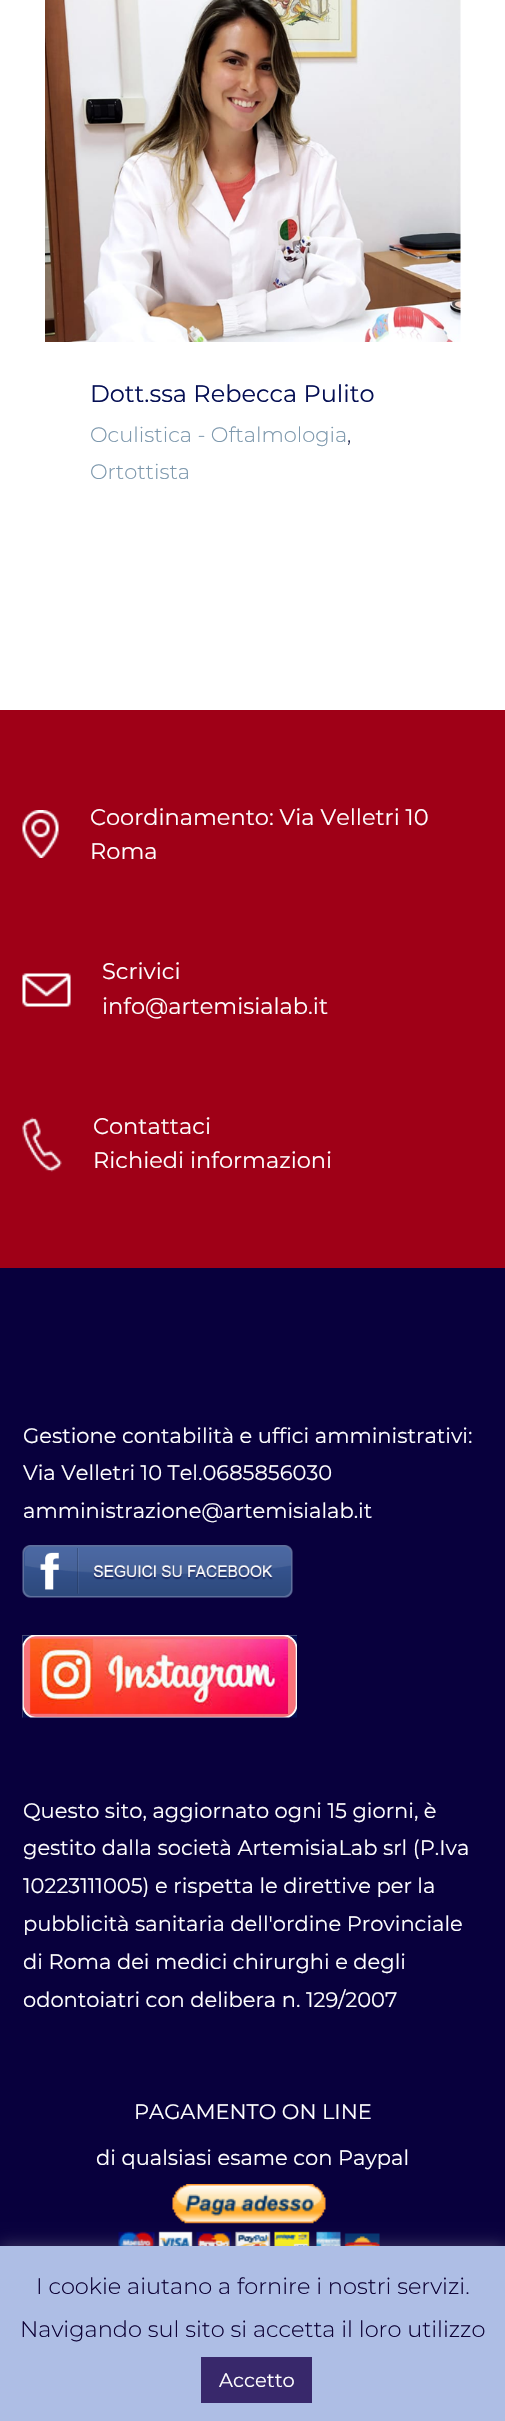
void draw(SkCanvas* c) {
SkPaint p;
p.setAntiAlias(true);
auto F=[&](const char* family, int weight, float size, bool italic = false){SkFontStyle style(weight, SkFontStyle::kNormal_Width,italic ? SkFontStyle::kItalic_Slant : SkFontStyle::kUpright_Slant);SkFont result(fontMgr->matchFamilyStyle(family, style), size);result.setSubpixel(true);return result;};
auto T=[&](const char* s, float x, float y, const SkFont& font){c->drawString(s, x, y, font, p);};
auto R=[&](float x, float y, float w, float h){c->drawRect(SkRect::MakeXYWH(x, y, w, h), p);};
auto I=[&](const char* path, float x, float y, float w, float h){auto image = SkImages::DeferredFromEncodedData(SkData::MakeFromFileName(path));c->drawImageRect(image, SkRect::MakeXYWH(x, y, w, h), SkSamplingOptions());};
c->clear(0xffffffff);
I("1.png",45,0,416,342);
auto f1 = F("Montserrat",400,24);
p.setColor(0xff050f54);
T("Dott.ssa Rebecca Pulito",90,402,f1);
auto f2 = F("Montserrat",300,21);
p.setColor(0xff7d98ad);
T("Oculistica - Oftalmologia",90,442,f2);
p.setColor(0xff21294f);
T(",",347,442,f2);
p.setColor(0xff7d98ad);
T("Ortottista",90,479,f2);
p.setColor(0xff9f0017);
R(0,710,505,558);
I("2.png",22,810,37,48);
auto f3 = F("Montserrat",400,22.5);
p.setColor(0xffffffff);
T("Coordinamento: Via Velletri 10",90,825,f3);
T("Roma",90,859,f3);
I("3.png",22,973,49,34);
T("Scrivici",102,979,f3);
T("info@artemisialab.it",102,1014,f3);
I("4.png",22,1117,40,55);
T("Contattaci",93,1134,f3);
T("Richiedi informazioni",93,1168,f3);
p.setColor(0xff08003d);
R(0,1268,505,978);
auto f4 = F("Montserrat",400,21);
p.setColor(0xffffffff);
T("Gestione contabilità e uffici amministrativi:",23,1443,f4);
T("Via Velletri 10 Tel.0685856030",23,1480,f4);
T("amministrazione@artemisialab.it",23,1518,f4);
I("5.png",22,1545,271,53);
I("6.png",22,1635,275,83);
T("Questo sito, aggiornato ogni 15 giorni, è",23,1818,f4);
T("gestito dalla società ArtemisiaLab srl (P.Iva",23,1855,f4);
T("10223111005) e rispetta le direttive per la",23,1893,f4);
T("pubblicità sanitaria dell'ordine Provinciale",23,1931,f4);
T("di Roma dei medici chirurghi e degli",23,1969,f4);
T("odontoiatri con delibera n. 129/2007",23,2007,f4);
T("PAGAMENTO ON LINE",134,2119,f4);
T("di qualsiasi esame con Paypal",96,2165,f4);
I("7.png",118,2184,262,62);
p.setColor(0x4dacabab);
p.setMaskFilter(SkMaskFilter::MakeBlur(kNormal_SkBlurStyle, 7.5));
c->drawRect(SkRect::MakeXYWH(0,2244,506,176),p);
p.setMaskFilter(nullptr);
p.setColor(0xffaebee5);
R(0,2246,505,175);
auto f5 = F("Montserrat",300,22.5);
p.setColor(0xff0d0135);
T("I cookie aiutano a fornire i nostri servizi.",36,2294,f5);
T("Navigando sul sito si accetta il loro utilizzo",20,2337,f5);
p.setColor(0xff38286b);
R(201,2357,111,46);
auto f6 = F("Montserrat",400,19.5);
p.setColor(0xffffffff);
T("Accetto",219,2387,f6);
}
